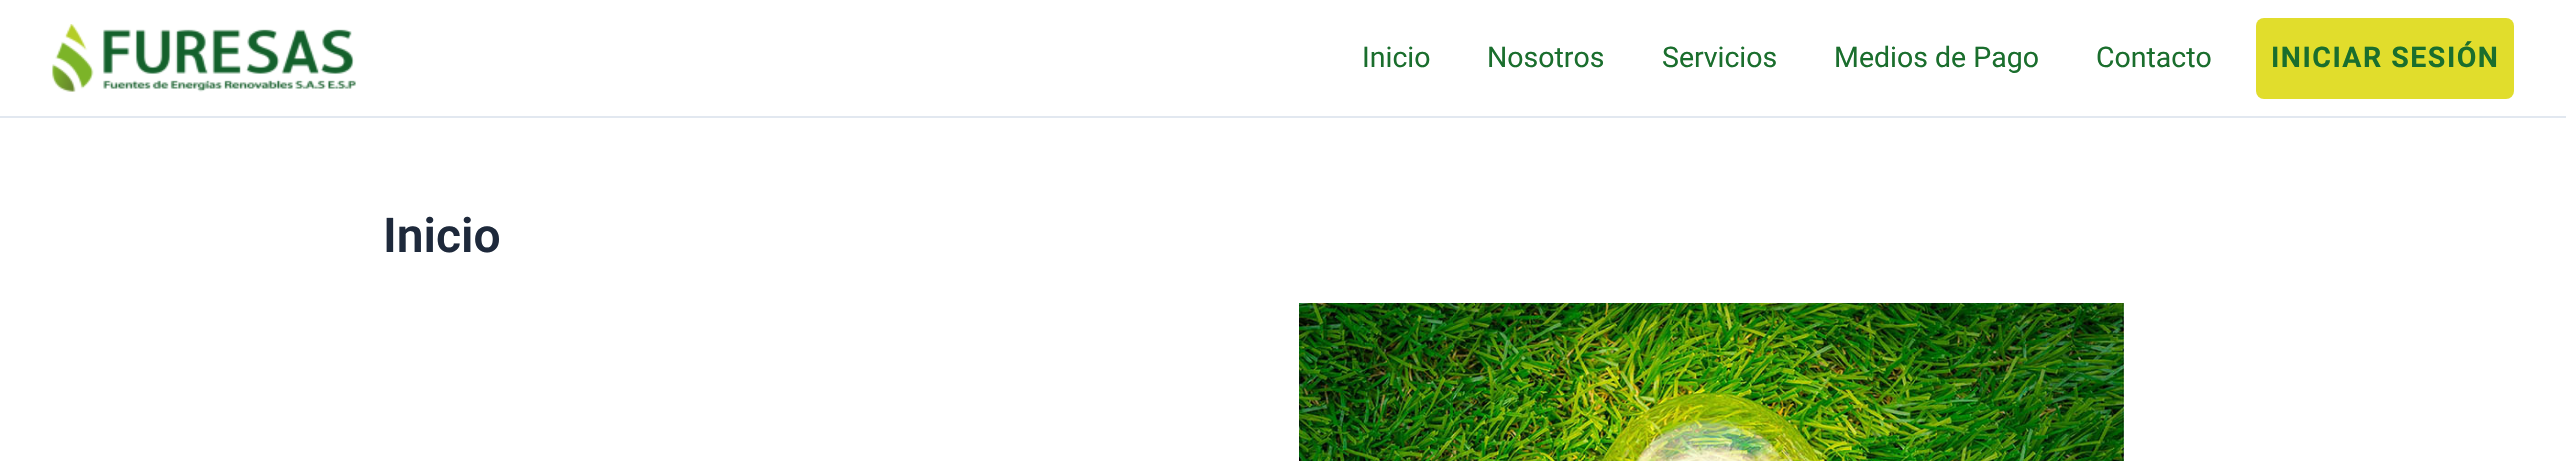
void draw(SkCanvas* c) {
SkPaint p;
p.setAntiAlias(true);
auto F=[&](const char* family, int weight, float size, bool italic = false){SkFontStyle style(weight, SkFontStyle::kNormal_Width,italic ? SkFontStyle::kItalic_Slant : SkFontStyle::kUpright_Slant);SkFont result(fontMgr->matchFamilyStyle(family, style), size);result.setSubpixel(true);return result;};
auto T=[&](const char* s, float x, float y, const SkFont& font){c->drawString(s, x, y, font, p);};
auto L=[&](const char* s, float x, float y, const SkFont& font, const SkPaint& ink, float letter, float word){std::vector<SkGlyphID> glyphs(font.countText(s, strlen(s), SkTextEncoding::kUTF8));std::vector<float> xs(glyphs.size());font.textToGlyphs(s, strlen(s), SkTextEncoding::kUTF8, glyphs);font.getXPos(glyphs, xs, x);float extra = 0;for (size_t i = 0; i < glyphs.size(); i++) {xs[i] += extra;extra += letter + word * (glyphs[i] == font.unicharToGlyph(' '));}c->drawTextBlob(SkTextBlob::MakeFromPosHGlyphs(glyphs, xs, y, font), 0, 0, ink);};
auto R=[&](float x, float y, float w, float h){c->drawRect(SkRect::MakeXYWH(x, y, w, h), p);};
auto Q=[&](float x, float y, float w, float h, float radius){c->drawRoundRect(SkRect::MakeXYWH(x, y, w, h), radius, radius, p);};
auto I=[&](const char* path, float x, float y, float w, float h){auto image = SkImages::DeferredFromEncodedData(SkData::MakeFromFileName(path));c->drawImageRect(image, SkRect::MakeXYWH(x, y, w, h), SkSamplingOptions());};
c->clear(0xffffffff);
p.setColor(0xffe2e8f0);
R(0,116,2566,2);
I("1.png",52,24,304,68);
auto f1 = F("Roboto",400,28.5);
p.setColor(0xff1a6e2d);
T("Inicio",1362,67,f1);
T("Nosotros",1487,67,f1);
T("Servicios",1662,67,f1);
T("Medios de Pago",1834,67,f1);
T("Contacto",2096,67,f1);
p.setColor(0xffe1dd2c);
Q(2256,18,258,81,8);
auto f2 = F("Roboto",700,28.5);
p.setColor(0xff1a6e2d);
L("INICIAR SESIÓN",2271,67,f2,p,1.5,0);
auto f3 = F("Roboto",600,48);
p.setColor(0xff1e293b);
T("Inicio",383,252,f3);
I("2.png",1299,303,825,158);
}
